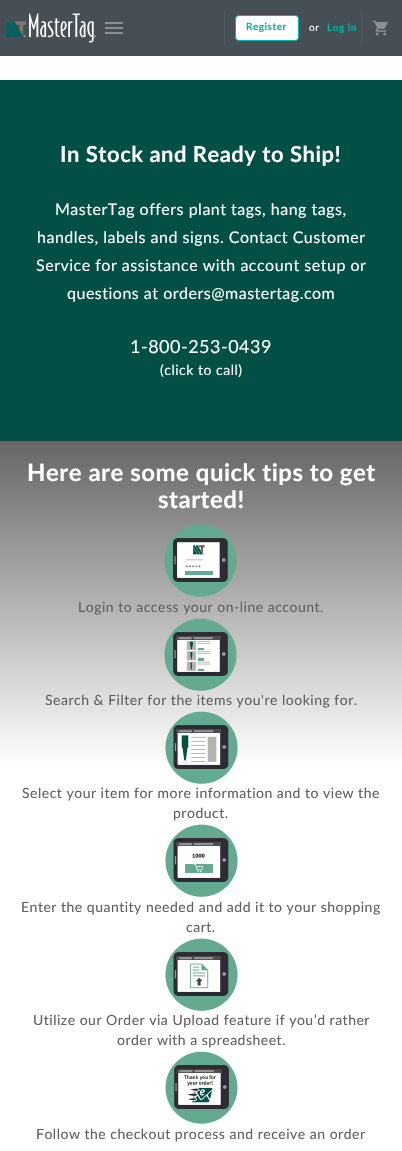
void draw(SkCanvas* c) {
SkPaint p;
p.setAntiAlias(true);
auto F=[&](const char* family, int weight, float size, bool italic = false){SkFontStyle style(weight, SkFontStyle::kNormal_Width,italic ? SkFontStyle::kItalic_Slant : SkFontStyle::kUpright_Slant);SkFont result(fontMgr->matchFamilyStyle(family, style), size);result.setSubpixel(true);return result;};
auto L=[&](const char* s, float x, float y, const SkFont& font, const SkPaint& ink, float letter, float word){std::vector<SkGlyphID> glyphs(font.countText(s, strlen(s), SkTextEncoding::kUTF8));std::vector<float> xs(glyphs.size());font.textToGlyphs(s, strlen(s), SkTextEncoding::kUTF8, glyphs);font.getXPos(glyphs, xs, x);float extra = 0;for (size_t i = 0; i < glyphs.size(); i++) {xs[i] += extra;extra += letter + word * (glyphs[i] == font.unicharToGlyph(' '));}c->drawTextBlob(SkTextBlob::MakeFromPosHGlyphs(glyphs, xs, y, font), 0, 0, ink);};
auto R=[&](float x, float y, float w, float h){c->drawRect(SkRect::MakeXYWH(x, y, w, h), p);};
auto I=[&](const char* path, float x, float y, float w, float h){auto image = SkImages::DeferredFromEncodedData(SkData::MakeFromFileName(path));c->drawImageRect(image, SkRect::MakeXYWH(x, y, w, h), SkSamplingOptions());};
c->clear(0xffffffff);
p.setColor(0xff464f56);
R(0,0,402,56);
I("1.png",6,13,90,30);
I("2.png",105,22,18,12);
p.setColor(0xff4f585f);
R(224,10,1,36);
p.setColor(0xffffffff);
c->drawRoundRect(SkRect::MakeXYWH(235.5,15.5,63,25),3.5,3.5,p);
p.setStroke(true);
p.setStrokeWidth(1);
p.setColor(0xff00b4ad);
c->drawRoundRect(SkRect::MakeXYWH(235.5,15.5,63,25),3.5,3.5,p);
auto f1 = F("Lato",700,10);
p.setStroke(false);
L("Register",246,30,f1,p,.5,0);
auto f2 = F("Lato",400,10);
p.setColor(0xffffffff);
L("or",309,31,f2,p,.5,0);
p.setColor(0xff00b4ad);
L("Log in",327,31,f1,p,.5,0);
p.setColor(0xff4f585f);
R(361,10,1,36);
I("3.png",372,20,16,16);
p.setColor(0xff014f45);
R(0,80,402,361);
auto f3 = F("Lato",700,22);
p.setColor(0xffffffff);
L("In Stock and Ready to Ship!",60,162,f3,p,.5,0);
auto f4 = F("Lato",400,16);
L("MasterTag offers plant tags, hang tags,",55,215,f4,p,.5,0);
L("handles, labels and signs. Contact Customer",37,243,f4,p,.5,0);
L("Service for assistance with account setup or",36,271,f4,p,.5,0);
L("questions at orders@mastertag.com",67,299,f4,p,.5,0);
auto f5 = F("Lato",400,18);
L("1-800-253-0439",130,353,f5,p,.5,0);
auto f6 = F("Lato",400,14);
L("(click to call)",160,375,f6,p,.5,0);
{
const SkColor colors[] = {0xffffffff,0xff666666};
const float stops[] = {.45,1};
const SkPoint ends[] = {{201,1034}, {201,441}};
p.setShader(SkGradientShader::MakeLinear(ends, colors, stops, 2, SkTileMode::kClamp));
p.setAlpha(255);
}
R(0,441,402,321);
auto f7 = F("Lato",700,24);
p.setShader(nullptr);
p.setColor(0xffffffff);
L("Here are some quick tips to get",27,481,f7,p,.5,0);
L("started!",158,508,f7,p,.5,0);
I("4.png",164,524,73,73);
p.setColor(0xff606060);
L("Login to access your on-line account.",78,612,f6,p,.5,0);
I("5.png",164,618,73,73);
L("Search & Filter for the items you're looking for.",45,705,f6,p,.5,0);
I("6.png",165,711,73,73);
L("Select your item for more information and to view the",22,798,f6,p,.5,0);
L("product.",173,818,f6,p,.5,0);
I("7.png",165,824,73,73);
L("Enter the quantity needed and add it to your shopping",21,912,f6,p,.5,0);
L("cart.",186,932,f6,p,.5,0);
I("8.png",165,938,73,73);
L("Utilize our Order via Upload feature if you’d rather",33,1025,f6,p,.5,0);
L("order with a spreadsheet.",117,1045,f6,p,.5,0);
I("9.png",165,1051,73,73);
L("Follow the checkout process and receive an order",36,1139,f6,p,.5,0);
}
